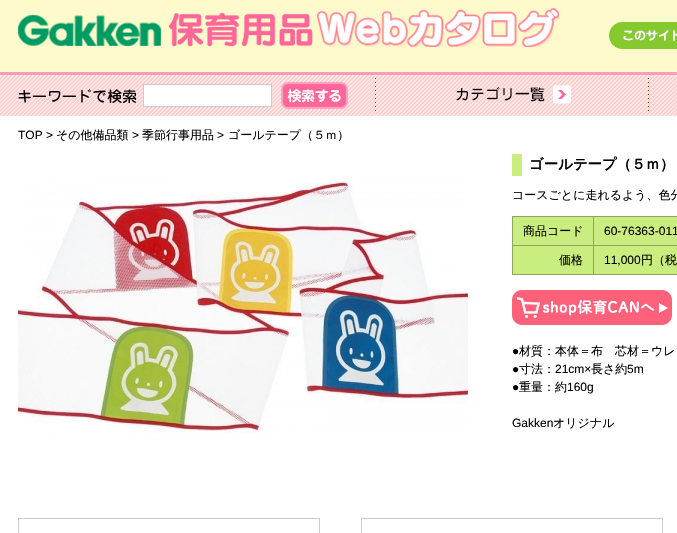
void draw(SkCanvas* c) {
SkPaint p;
p.setAntiAlias(true);
auto F=[&](const char* family, int weight, float size, bool italic = false){SkFontStyle style(weight, SkFontStyle::kNormal_Width,italic ? SkFontStyle::kItalic_Slant : SkFontStyle::kUpright_Slant);SkFont result(fontMgr->matchFamilyStyle(family, style), size);result.setSubpixel(true);return result;};
auto T=[&](const char* s, float x, float y, const SkFont& font){c->drawString(s, x, y, font, p);};
auto R=[&](float x, float y, float w, float h){c->drawRect(SkRect::MakeXYWH(x, y, w, h), p);};
auto I=[&](const char* path, float x, float y, float w, float h){auto image = SkImages::DeferredFromEncodedData(SkData::MakeFromFileName(path));c->drawImageRect(image, SkRect::MakeXYWH(x, y, w, h), SkSamplingOptions());};
c->clear(0xffffffff);
p.setColor(0xfffffacc);
R(0,0,677,72);
I("1.png",18,8,541,39);
I("2.png",609,22,68,27);
I("3.png",0,75,375,41);
p.setColor(0xffff9bbd);
R(0,72,677,3);
I("4.png",18,89,119,15);
p.setColor(0xffffffff);
c->drawRect(SkRect::MakeXYWH(143.5,84.5,128,22),p);
p.setStroke(true);
p.setStrokeWidth(1);
p.setColor(0xffcccccc);
c->drawRect(SkRect::MakeXYWH(143.5,84.5,128,22),p);
I("5.png",281,82,67,27);
I("6.png",375,75,273,41);
I("7.png",379,78,266,34);
I("8.png",648,75,29,41);
I("9.png",652,78,25,34);
auto f1 = F("Liberation Sans",400,12);
p.setStroke(false);
p.setColor(0xff000000);
T("TOP >",18,139,f1);
auto f2 = F("WenQuanYi Zen Hei",500,12);
T("その他備品類",56,139,f2);
T(">",132,139,f1);
T("季節行事用品",142,139,f2);
T(">",217,139,f1);
T("ゴールテープ（５ｍ）",228,139,f2);
I("10.png",18,181,450,253);
p.setColor(0xffcaed7f);
R(512,154,10,22);
auto f3 = F("WenQuanYi Zen Hei",700,14.4);
p.setColor(0xff000000);
T("ゴールテープ（５ｍ）",529,169,f3);
T("コースごとに走れるよう、色分",512,199,f2);
p.setColor(0xff8fa55f);
R(512,216,165,1);
R(512,216,1,59);
p.setColor(0xffcaed7f);
R(513,217,80,28);
p.setColor(0xff8fa55f);
R(593,274,84,1);
R(593,245,1,30);
R(593,245,84,1);
R(593,216,1,30);
R(512,245,82,1);
p.setColor(0xff000000);
T("商品コード",523,235,f2);
p.setColor(0xffcaed7f);
R(594,217,83,28);
p.setColor(0xff000000);
T("60-76363-011",604,235,f1);
p.setColor(0xffcaed7f);
R(513,246,80,28);
p.setColor(0xff8fa55f);
R(512,274,82,1);
p.setColor(0xff000000);
T("価格",559,264,f2);
p.setColor(0xffcaed7f);
R(594,246,83,28);
p.setColor(0xff000000);
T("11,000",604,264,f1);
T("円（税",641,264,f2);
I("11.png",512,290,160,35);
T("●",512,355,f1);
T("材質：本体＝布　芯材＝ウレ",519,355,f2);
T("●",512,373,f1);
T("寸法：",519,373,f2);
T("21cm×",555,373,f1);
T("長さ約",591,373,f2);
T("5m",627,373,f1);
T("●",512,391,f1);
T("重量：約",519,391,f2);
T("160g",567,391,f1);
T("Gakken",512,427,f1);
T("オリジナル",553,427,f2);
p.setStroke(true);
p.setColor(0xffcccccc);
c->drawRect(SkRect::MakeXYWH(18.5,518.5,301,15),p);
c->drawRect(SkRect::MakeXYWH(361.5,518.5,301,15),p);
}
